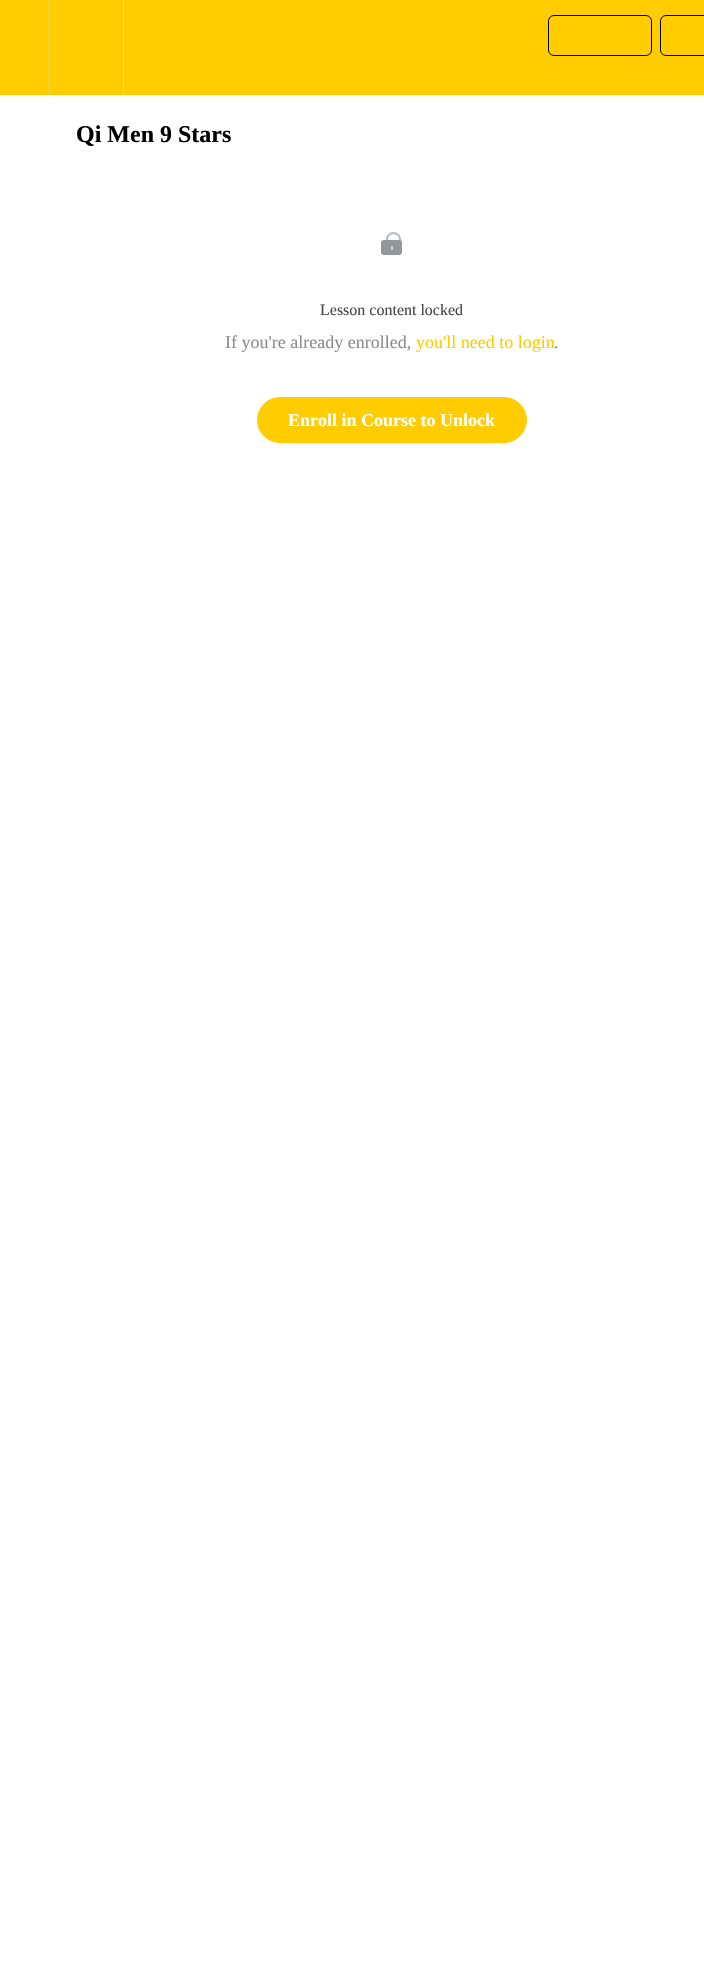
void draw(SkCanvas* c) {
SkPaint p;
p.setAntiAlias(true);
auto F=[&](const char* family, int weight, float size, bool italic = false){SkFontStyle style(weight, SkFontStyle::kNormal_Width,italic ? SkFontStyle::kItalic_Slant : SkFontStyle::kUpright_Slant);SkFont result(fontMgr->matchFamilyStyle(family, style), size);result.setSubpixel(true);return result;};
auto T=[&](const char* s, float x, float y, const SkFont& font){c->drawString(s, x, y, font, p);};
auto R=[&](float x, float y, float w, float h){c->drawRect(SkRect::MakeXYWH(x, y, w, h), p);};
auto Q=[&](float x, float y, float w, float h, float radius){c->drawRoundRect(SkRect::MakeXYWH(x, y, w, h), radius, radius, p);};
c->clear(0xffffffff);
p.setColor(0xffffcc00);
R(0,0,704,95);
p.setColor(0xffd7dadb);
R(123,0,1,95);
p.setColor(0xfff3d042);
R(48,0,1,95);
p.setStroke(true);
p.setStrokeWidth(1);
p.setColor(0xff000000);
c->drawRoundRect(SkRect::MakeXYWH(548.5,15.5,103,40),5.5,5.5,p);
c->drawRoundRect(SkRect::MakeXYWH(660.5,15.5,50,40),5.5,5.5,p);
auto f1 = F("Liberation Serif",700,24);
p.setStroke(false);
T("Qi Men 9 Stars",76,142,f1);
p.setStroke(true);
p.setStrokeWidth(2);
p.setColor(0xffb5babf);
c->drawRoundRect(SkRect::MakeXYWH(387,233,13,20),6.5,6.5,p);
p.setStroke(false);
p.setColor(0xff8f989f);
Q(381,240,21,15,3);
p.setColor(0xffd3d7dc);
Q(391,246,2,4,1);
auto f2 = F("Liberation Serif",400,16);
p.setColor(0xff454545);
T("Lesson content locked",320,315,f2);
auto f3 = F("Liberation Serif",400,18);
p.setColor(0xff8b8b8b);
T("If you're already enrolled,",225,348,f3);
p.setColor(0xffffcc00);
T("you'll need to login",416,348,f3);
p.setColor(0xff8b8b8b);
T(".",554,348,f3);
p.setColor(0xffffcc00);
c->drawRoundRect(SkRect::MakeXYWH(257.5,397.5,269,45),22.5,22.5,p);
p.setStroke(true);
p.setStrokeWidth(1);
c->drawRoundRect(SkRect::MakeXYWH(257.5,397.5,269,45),22.5,22.5,p);
auto f4 = F("Liberation Serif",700,18);
p.setStroke(false);
p.setColor(0xffffffff);
T("Enroll in Course to Unlock",288,426,f4);
}
